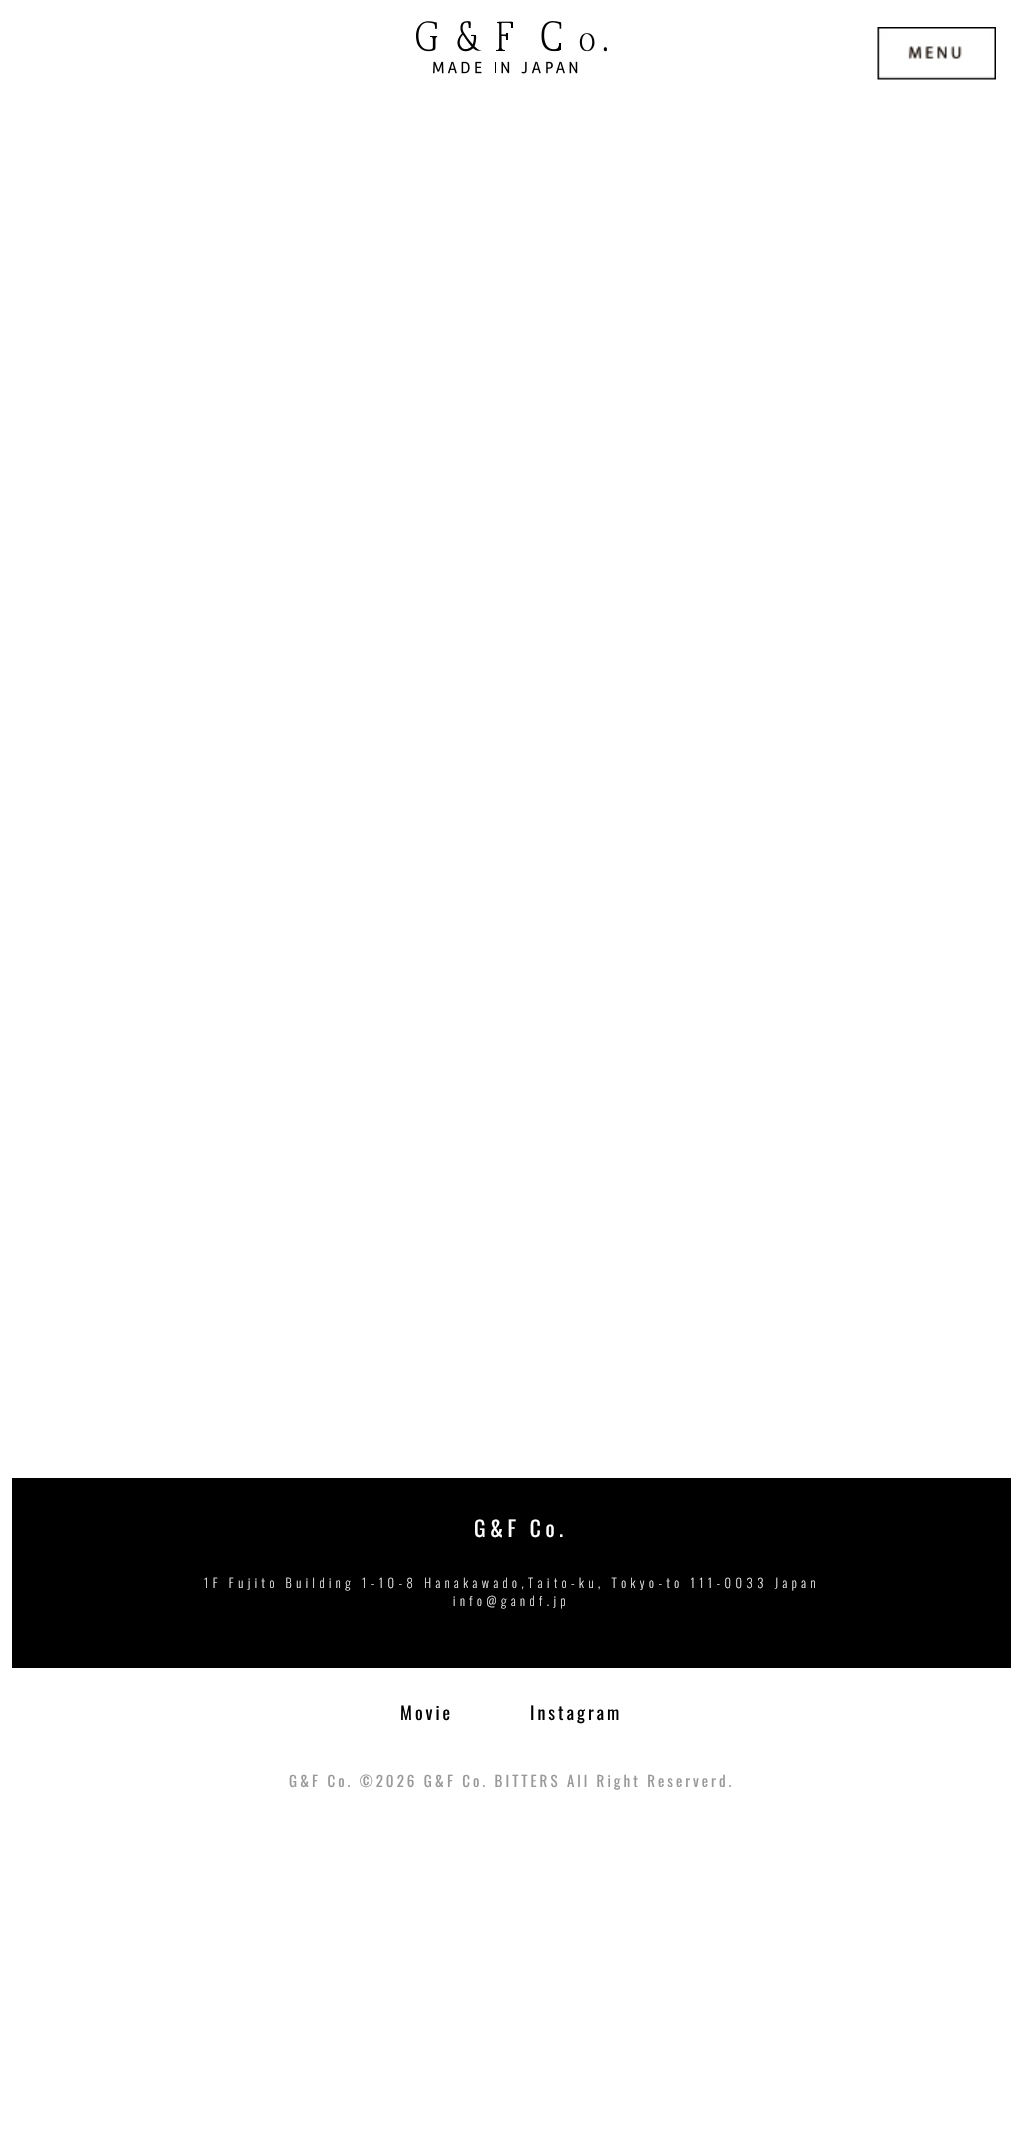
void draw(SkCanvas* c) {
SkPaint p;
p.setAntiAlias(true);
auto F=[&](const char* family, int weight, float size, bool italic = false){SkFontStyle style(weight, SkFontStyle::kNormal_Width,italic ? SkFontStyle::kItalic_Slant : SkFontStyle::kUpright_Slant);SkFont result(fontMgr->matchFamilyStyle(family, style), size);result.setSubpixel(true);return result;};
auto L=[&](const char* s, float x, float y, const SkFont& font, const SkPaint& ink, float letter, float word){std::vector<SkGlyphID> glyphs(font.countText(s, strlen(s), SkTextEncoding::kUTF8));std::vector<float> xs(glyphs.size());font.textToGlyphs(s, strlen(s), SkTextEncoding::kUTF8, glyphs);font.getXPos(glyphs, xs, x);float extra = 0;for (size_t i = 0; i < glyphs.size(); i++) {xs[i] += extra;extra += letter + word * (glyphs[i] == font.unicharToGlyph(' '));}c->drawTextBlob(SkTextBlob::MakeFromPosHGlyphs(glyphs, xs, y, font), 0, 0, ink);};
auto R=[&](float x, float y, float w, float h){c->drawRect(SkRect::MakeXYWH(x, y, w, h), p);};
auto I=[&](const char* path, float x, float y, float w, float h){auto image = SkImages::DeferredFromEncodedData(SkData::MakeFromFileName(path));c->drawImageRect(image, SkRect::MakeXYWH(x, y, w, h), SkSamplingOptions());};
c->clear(0xffffffff);
I("1.png",416,21,191,53);
I("2.png",877,27,119,53);
p.setColor(0xff000000);
R(12,1478,999,190);
auto f1 = F("Oswald",400,21.5);
p.setColor(0xffffffff);
L("G&F Co.",474,1537,f1,p,4.5,0);
auto f2 = F("Oswald",200,12.6);
L("1F Fujito Building 1-10-8 Hanakawado,Taito-ku, Tokyo-to 111-0033 Japan",204,1588,f2,p,4.5,0);
L("info@gandf.jp",453,1606,f2,p,4.5,0);
auto f3 = F("Oswald",400,18);
p.setColor(0xff000000);
L("Movie",400,1720,f3,p,3,0);
L("Instagram",530,1720,f3,p,3,0);
auto f4 = F("Oswald",400,15);
p.setColor(0xff999999);
L("G&F Co. ©2026 G&F Co. BITTERS All Right Reserverd.",289,1787,f4,p,3,0);
}
